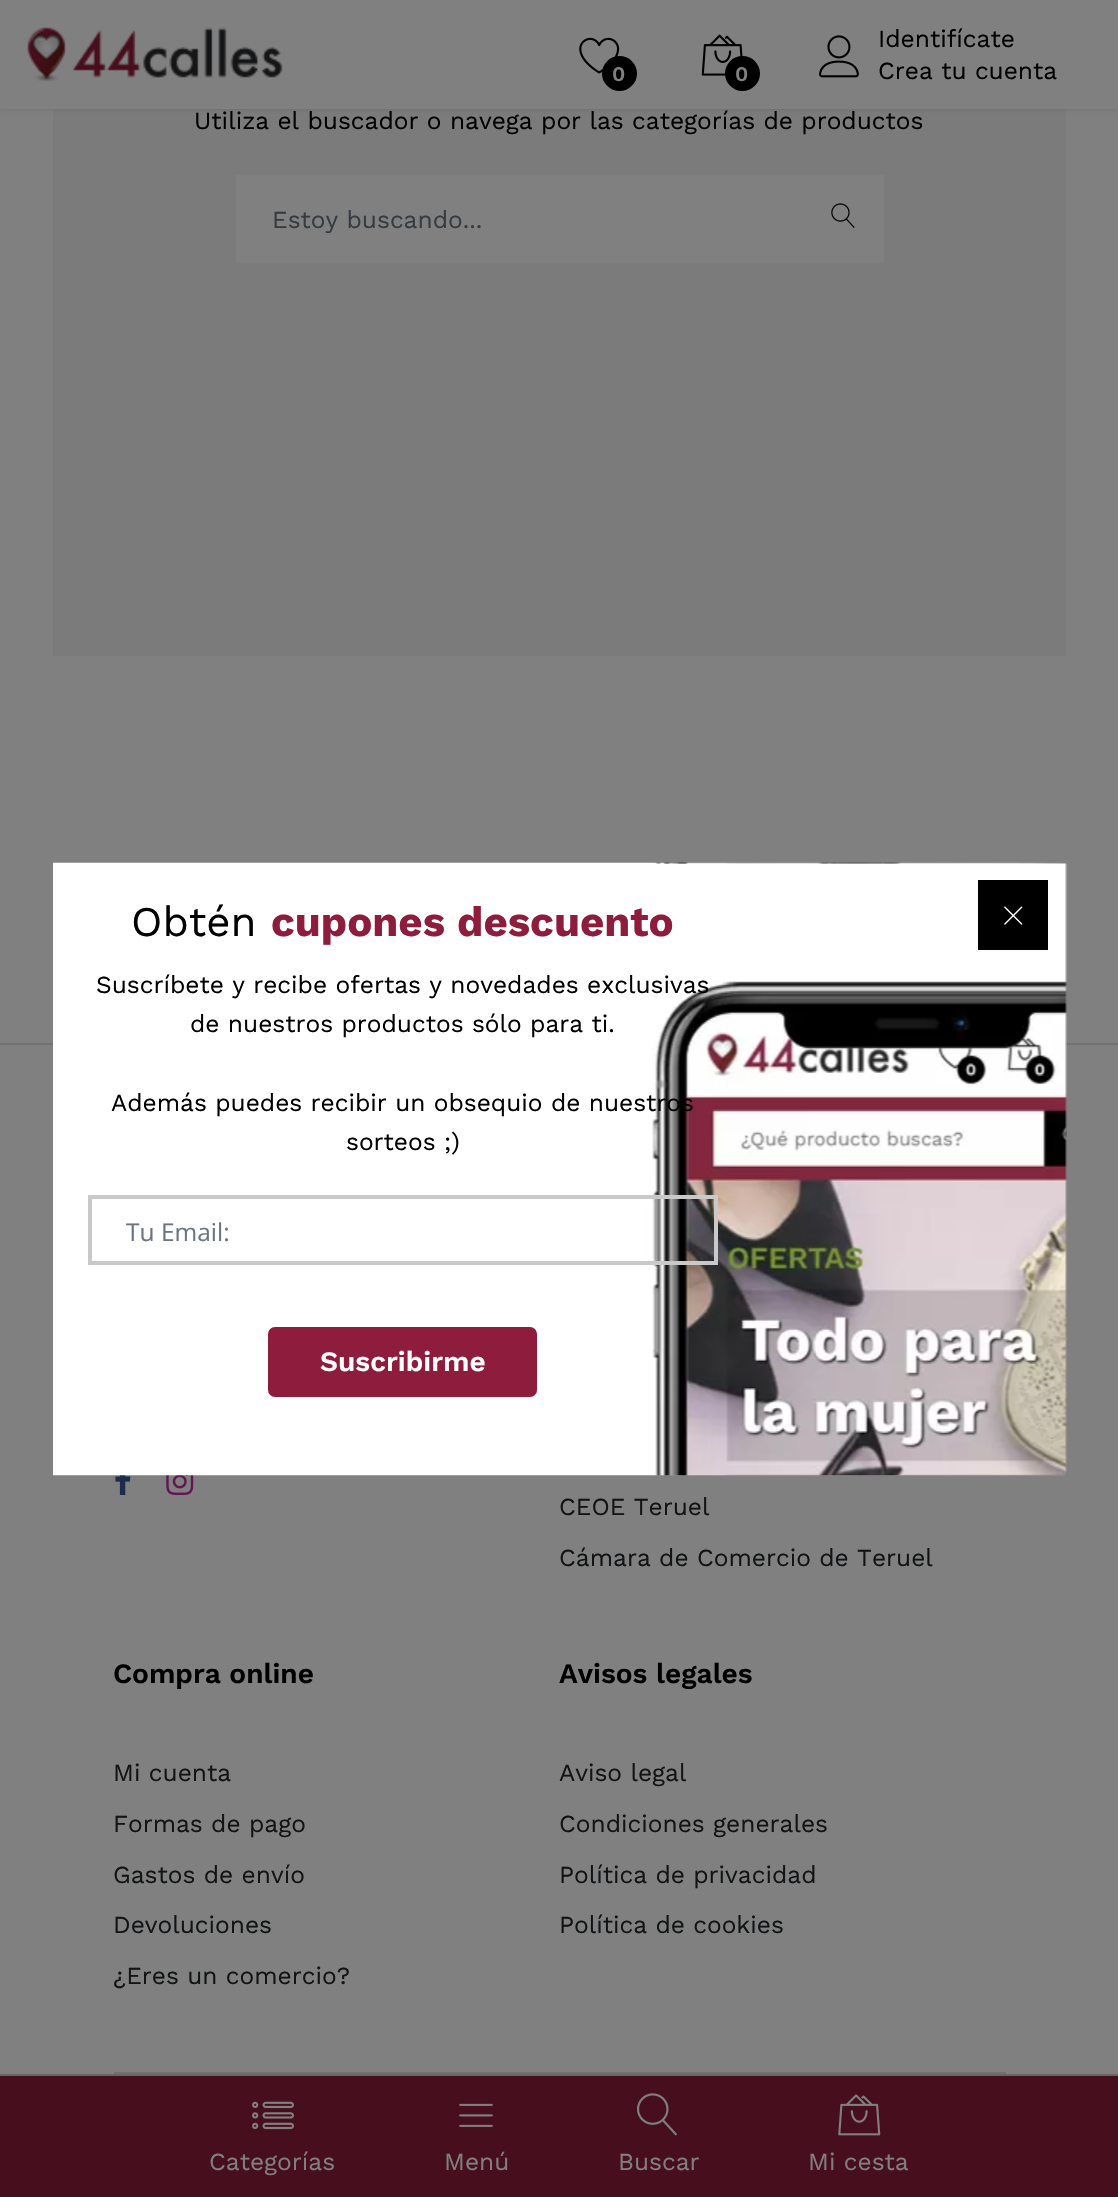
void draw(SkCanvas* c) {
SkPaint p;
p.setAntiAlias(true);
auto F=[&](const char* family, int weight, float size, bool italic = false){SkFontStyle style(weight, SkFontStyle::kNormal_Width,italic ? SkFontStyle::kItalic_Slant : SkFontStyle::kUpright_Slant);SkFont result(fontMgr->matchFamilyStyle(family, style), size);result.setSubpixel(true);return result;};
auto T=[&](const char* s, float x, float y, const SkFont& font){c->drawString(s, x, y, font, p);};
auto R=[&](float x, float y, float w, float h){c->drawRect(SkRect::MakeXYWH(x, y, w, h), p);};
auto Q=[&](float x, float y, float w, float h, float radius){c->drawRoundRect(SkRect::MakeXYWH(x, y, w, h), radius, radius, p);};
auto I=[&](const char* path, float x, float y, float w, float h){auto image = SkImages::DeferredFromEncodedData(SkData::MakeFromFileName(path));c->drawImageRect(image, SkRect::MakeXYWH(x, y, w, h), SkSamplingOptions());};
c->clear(0xff808080);
p.setColor(0xff7b7b7b);
R(53,109,1013,547);
p.setColor(0x1f000000);
p.setMaskFilter(SkMaskFilter::MakeBlur(kNormal_SkBlurStyle, 2.5));
c->drawRect(SkRect::MakeXYWH(0,0,1118,109),p);
p.setMaskFilter(nullptr);
p.setColor(0xff808080);
R(0,0,1118,109);
I("1.png",27,27,256,55);
I("2.png",579,37,41,37);
p.setColor(0xff000000);
c->drawCircle(619.5,73.5,17.5,p);
auto f1 = F("Work Sans",600,21);
p.setColor(0xff808080);
T("0",612,81,f1);
I("3.png",701,34,42,42);
p.setColor(0xff000000);
c->drawCircle(742.5,73.5,17.5,p);
p.setColor(0xff808080);
T("0",735,81,f1);
I("4.png",819,35,40,43);
auto f2 = F("Work Sans",400,24.5);
p.setColor(0xff000000);
T("Identifícate",878,47,f2);
T("Crea tu cuenta",878,79,f2);
T("Utiliza el buscador o navega por las categorías de productos",194,129,f2);
p.setColor(0xff808080);
c->drawRect(SkRect::MakeXYWH(237,176,646,86),p);
p.setStroke(true);
p.setStrokeWidth(2);
c->drawRect(SkRect::MakeXYWH(237,176,646,86),p);
c->save();
c->clipRect(SkRect::MakeXYWH(273,205,574,28));
p.setStroke(false);
p.setColor(0xff363b3f);
T("Estoy buscando...",272,228,f2);
c->restore();
I("5.png",831,203,24,25);
p.setColor(0xff717171);
R(0,1043,1118,2);
I("8.png",115,1475,16,20);
I("9.png",166,1475,28,20);
I("6.png",53,862,1014,614);
auto f3 = F("Work Sans",400,42);
p.setColor(0xff000000);
T("Obtén",131,936,f3);
auto f4 = F("Work Sans",700,42);
p.setColor(0xff8e1c3c);
T("cupones descuento",271,936,f4);
p.setColor(0xff000000);
T("Suscríbete y recibe ofertas y novedades exclusivas",96,993,f2);
T("de nuestros productos sólo para ti.",190,1032,f2);
T("Además puedes recibir un obsequio de nuestros",111,1111,f2);
T("sorteos ;)",346,1150,f2);
p.setStroke(true);
p.setStrokeWidth(4);
p.setColor(0xffc9c9c9);
c->drawRect(SkRect::MakeXYWH(90,1197,626,66),p);
auto f5 = F("Open Sans",400,24.5);
p.setStroke(false);
p.setColor(0xff6c757d);
T("Tu Email:",126,1241,f5);
p.setColor(0xff8e1c3c);
Q(268,1327,269,70,7);
auto f6 = F("Work Sans",600,28);
p.setColor(0xffffffff);
T("Suscribirme",320,1371,f6);
p.setColor(0xff000000);
R(978,880,70,70);
I("7.png",1004,906,19,19);
p.setColor(0xff111315);
T("CEOE Teruel",559,1515,f2);
T("Cámara de Comercio de Teruel",559,1566,f2);
p.setColor(0xff000000);
T("Compra online",113,1683,f6);
p.setColor(0xff111315);
T("Mi cuenta",113,1781,f2);
T("Formas de pago",113,1832,f2);
T("Gastos de envío",113,1883,f2);
T("Devoluciones",113,1933,f2);
T("¿Eres un comercio?",113,1984,f2);
p.setColor(0xff000000);
T("Avisos legales",559,1683,f6);
p.setColor(0xff111315);
T("Aviso legal",559,1781,f2);
T("Condiciones generales",559,1832,f2);
T("Política de privacidad",559,1883,f2);
T("Política de cookies",559,1933,f2);
p.setColor(0xff717171);
R(114,2072,892,2);
p.setColor(0xff470e1e);
R(0,2076,1118,121);
p.setColor(0xff666666);
R(0,2074,1118,2);
I("10.png",252,2101,42,29);
p.setColor(0xff808080);
T("Categorías",209,2170,f2);
I("11.png",459,2103,34,24);
T("Menú",444,2170,f2);
I("12.png",637,2093,40,43);
T("Buscar",618,2170,f2);
I("13.png",838,2094,43,42);
T("Mi cesta",808,2170,f2);
}
